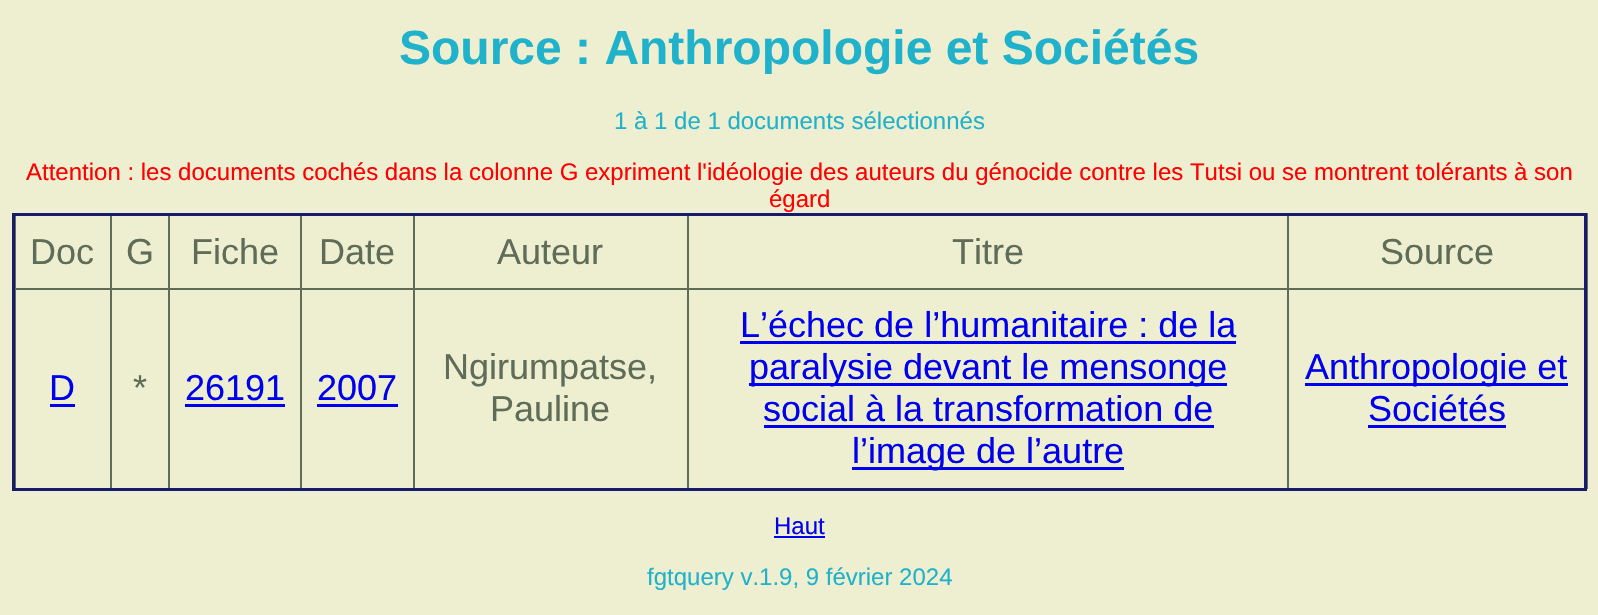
void draw(SkCanvas* c) {
SkPaint p;
p.setAntiAlias(true);
auto F=[&](const char* family, int weight, float size, bool italic = false){SkFontStyle style(weight, SkFontStyle::kNormal_Width,italic ? SkFontStyle::kItalic_Slant : SkFontStyle::kUpright_Slant);SkFont result(fontMgr->matchFamilyStyle(family, style), size);result.setSubpixel(true);return result;};
auto T=[&](const char* s, float x, float y, const SkFont& font){c->drawString(s, x, y, font, p);};
auto R=[&](float x, float y, float w, float h){c->drawRect(SkRect::MakeXYWH(x, y, w, h), p);};
c->clear(0xffeeeed1);
auto f1 = F("Liberation Sans",700,48);
p.setColor(0xff20b2cb);
T("Source : Anthropologie et Sociétés",399,64,f1);
auto f2 = F("Liberation Sans",400,24);
T("1 à 1 de 1 documents sélectionnés",614,129,f2);
p.setColor(0xffff0000);
T("Attention : les documents cochés dans la colonne G expriment l'idéologie des auteurs du génocide contre les Tutsi ou se montrent tolérants à son",26,180,f2);
T("égard",769,207,f2);
p.setColor(0xff5e6c58);
R(14,288,1573,2);
R(15,213,1,276);
R(110,213,2,276);
R(168,213,2,276);
R(300,213,2,276);
R(413,213,2,276);
R(687,213,2,276);
R(1287,213,2,276);
p.setColor(0xff191970);
R(12,213,1575,3);
R(1584,213,3,278);
R(12,488,1575,3);
R(12,213,3,278);
auto f3 = F("Liberation Sans",400,36);
p.setColor(0xff5e6c58);
T("Doc",30,264,f3);
T("G",126,264,f3);
T("Fiche",191,264,f3);
T("Date",319,264,f3);
T("Auteur",497,264,f3);
T("Titre",952,264,f3);
T("Source",1380,264,f3);
R(1587,213,1,276);
p.setColor(0xff0000ee);
T("D",49,400,f3);
R(50,404,25,3);
p.setColor(0xff5e6c58);
T("*",133,400,f3);
p.setColor(0xff0000ee);
T("26191",185,400,f3);
R(185,404,100,3);
T("2007",317,400,f3);
R(317,404,81,3);
p.setColor(0xff5e6c58);
T("Ngirumpatse,",443,379,f3);
T("Pauline",490,421,f3);
p.setColor(0xff0000ee);
T("L’échec de l’humanitaire : de la",740,337,f3);
R(740,341,496,3);
R(749,383,478,3);
T("paralysie devant le mensonge",749,379,f3);
T("social à la transformation de",763,421,f3);
R(764,425,450,3);
R(852,467,272,3);
T("l’image de l’autre",852,463,f3);
R(1305,383,263,3);
T("Anthropologie et",1305,379,f3);
T("Sociétés",1368,421,f3);
R(1368,425,138,3);
T("Haut",774,534,f2);
R(774,536,51,2);
p.setColor(0xff20b2cb);
T("fgtquery v.1.9, 9 février 2024",647,585,f2);
}
